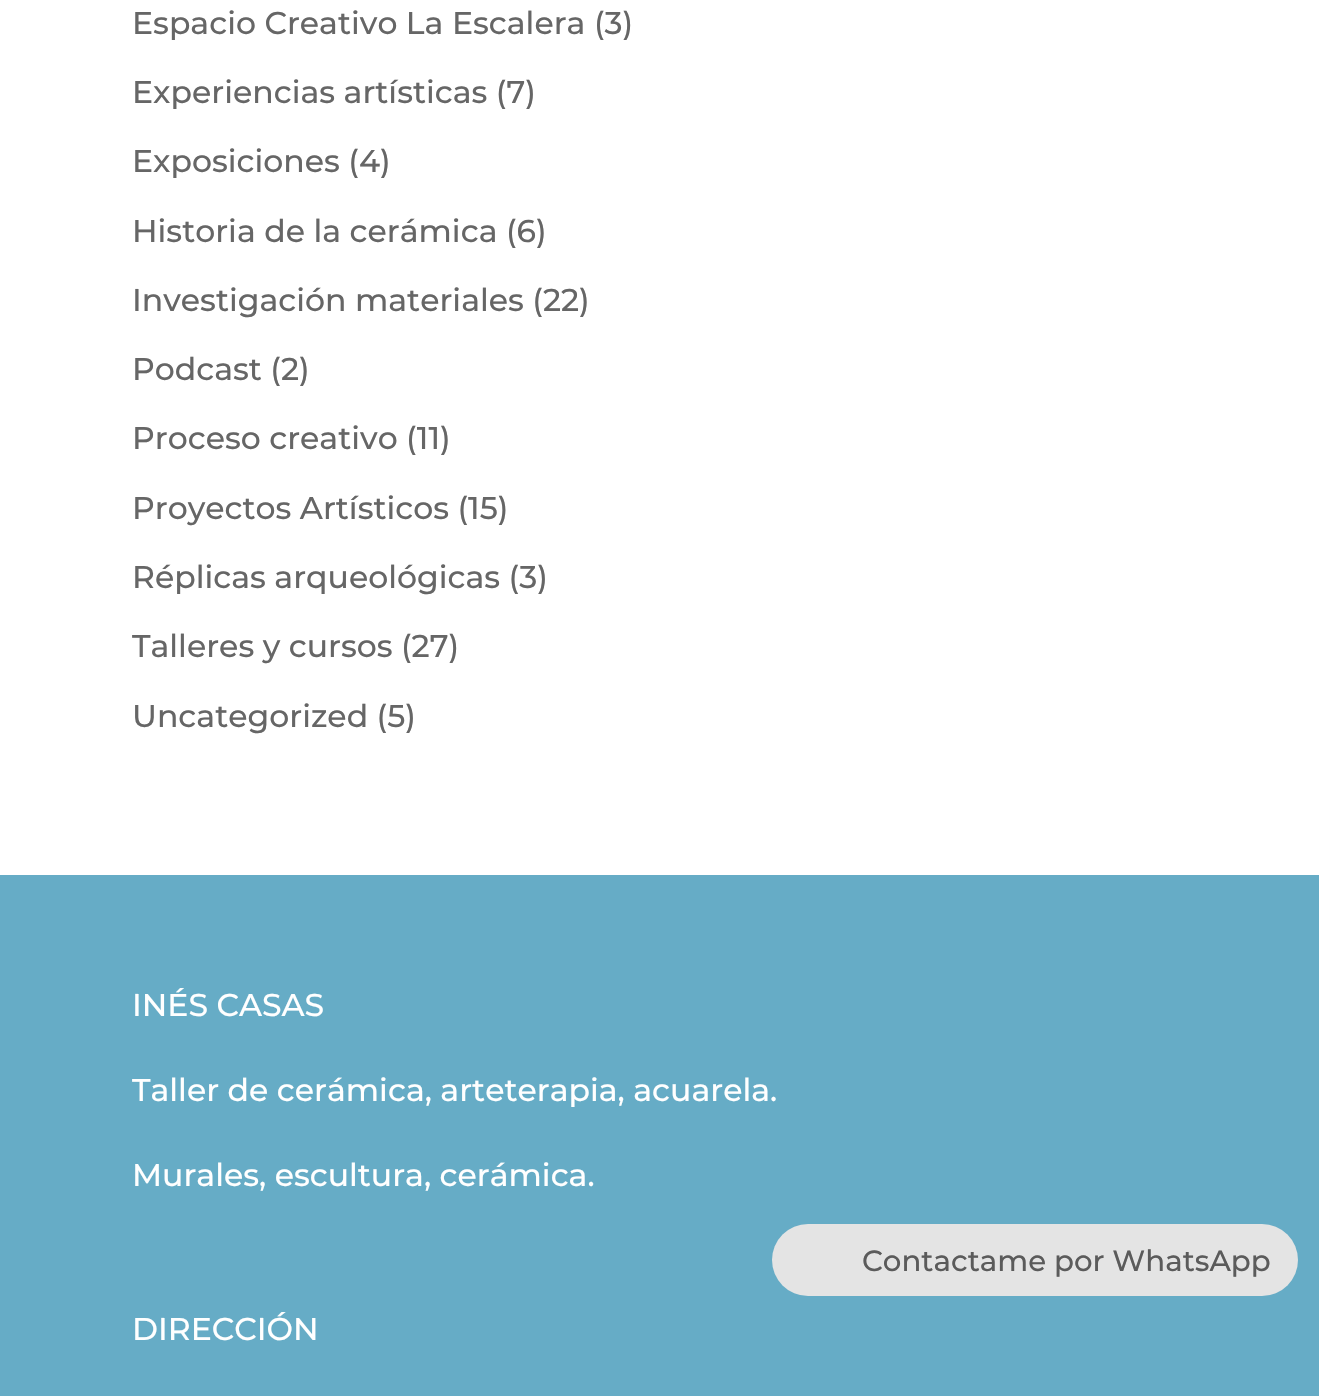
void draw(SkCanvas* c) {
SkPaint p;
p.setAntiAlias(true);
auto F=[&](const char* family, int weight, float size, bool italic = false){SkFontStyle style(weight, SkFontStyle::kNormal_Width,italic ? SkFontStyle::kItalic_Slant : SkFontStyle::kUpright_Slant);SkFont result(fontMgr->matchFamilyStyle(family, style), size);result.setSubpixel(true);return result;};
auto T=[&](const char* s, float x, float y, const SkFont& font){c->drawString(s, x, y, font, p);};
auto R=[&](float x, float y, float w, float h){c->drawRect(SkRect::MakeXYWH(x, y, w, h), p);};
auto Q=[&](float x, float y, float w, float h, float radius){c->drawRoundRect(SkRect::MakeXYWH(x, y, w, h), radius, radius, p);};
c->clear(0xffffffff);
auto f1 = F("Montserrat",500,31.5);
p.setColor(0xff666666);
T("Espacio Creativo La Escalera (3)",132,34,f1);
T("Experiencias artísticas (7)",132,103,f1);
T("Exposiciones (4)",132,172,f1);
T("Historia de la cerámica (6)",132,242,f1);
T("Investigación materiales (22)",132,311,f1);
T("Podcast (2)",132,380,f1);
T("Proceso creativo (11)",132,449,f1);
T("Proyectos Artísticos (15)",132,519,f1);
T("Réplicas arqueológicas (3)",132,588,f1);
T("Talleres y cursos (27)",132,657,f1);
T("Uncategorized (5)",132,727,f1);
p.setColor(0xff66acc6);
R(0,875,1319,521);
p.setColor(0xffffffff);
T("INÉS CASAS",132,1016,f1);
T("Taller de cerámica, arteterapia, acuarela.",132,1101,f1);
T("Murales, escultura, cerámica.",132,1186,f1);
T("DIRECCIÓN",132,1340,f1);
p.setColor(0xffe4e4e4);
Q(772,1224,526,72,36);
auto f2 = F("Montserrat",500,29.25);
p.setColor(0xff5b5b5b);
T("Contactame por WhatsApp",862,1271,f2);
}
